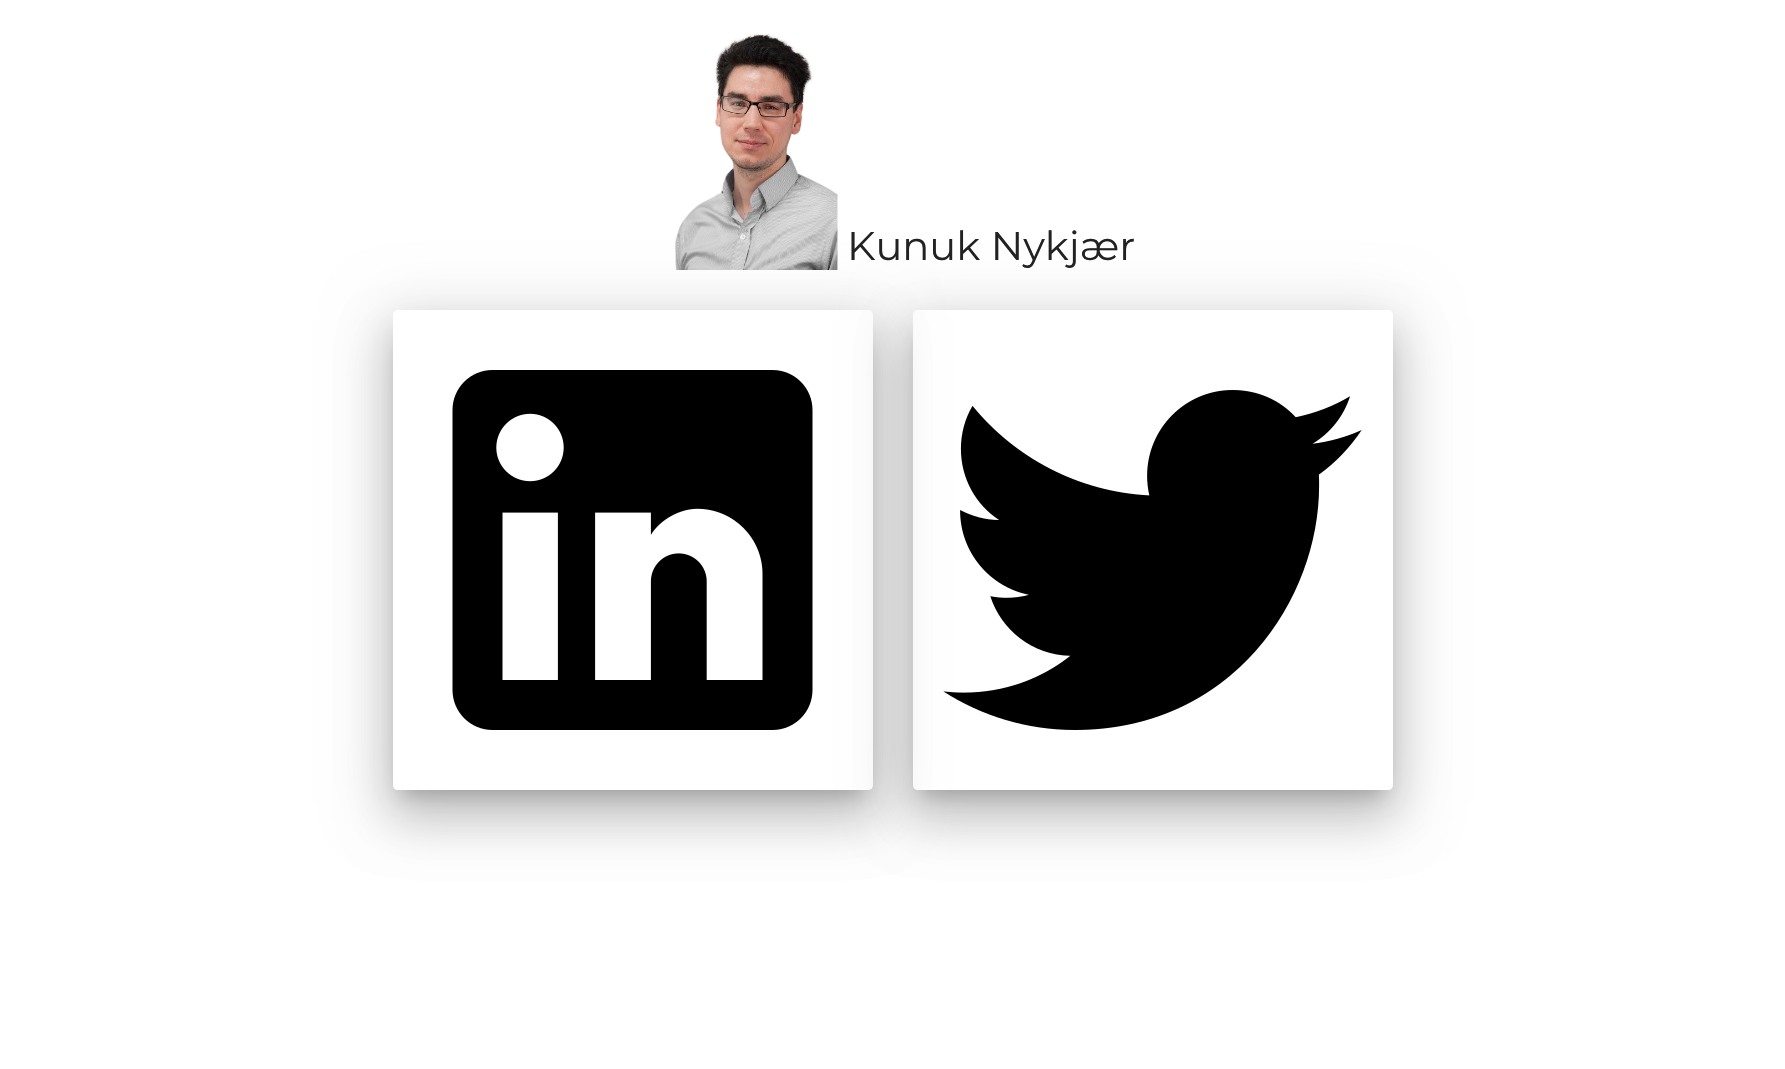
void draw(SkCanvas* c) {
SkPaint p;
p.setAntiAlias(true);
auto F=[&](const char* family, int weight, float size, bool italic = false){SkFontStyle style(weight, SkFontStyle::kNormal_Width,italic ? SkFontStyle::kItalic_Slant : SkFontStyle::kUpright_Slant);SkFont result(fontMgr->matchFamilyStyle(family, style), size);result.setSubpixel(true);return result;};
auto T=[&](const char* s, float x, float y, const SkFont& font){c->drawString(s, x, y, font, p);};
auto I=[&](const char* path, float x, float y, float w, float h){auto image = SkImages::DeferredFromEncodedData(SkData::MakeFromFileName(path));c->drawImageRect(image, SkRect::MakeXYWH(x, y, w, h), SkSamplingOptions());};
auto P=[&](const char* data, bool evenOdd = false){SkPath result = *SkParsePath::FromSVGString(data);if (evenOdd) result.setFillType(SkPathFillType::kEvenOdd);return result;};
c->clear(0xffffffff);
I("3.png",675,34,163,236);
c->save();
c->clipPath(P("M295 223h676v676h-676zm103 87h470c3 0 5 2 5 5v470c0 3-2 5-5 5h-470c-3 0-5-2-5-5v-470c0-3 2-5 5-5z",true),true);
p.setColor(0x1f000000);
p.setMaskFilter(SkMaskFilter::MakeBlur(kNormal_SkBlurStyle, 29));
c->drawRoundRect(SkRect::MakeXYWH(383,311,500,500),15,15,p);
p.setMaskFilter(nullptr);
c->restore();
c->save();
c->clipPath(P("M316 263h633v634h-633zm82 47h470c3 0 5 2 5 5v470c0 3-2 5-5 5h-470c-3 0-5-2-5-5v-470c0-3 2-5 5-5z",true),true);
p.setColor(0x24000000);
p.setMaskFilter(SkMaskFilter::MakeBlur(kNormal_SkBlurStyle, 24));
c->drawRoundRect(SkRect::MakeXYWH(389,336,487,488),9,9,p);
p.setMaskFilter(nullptr);
c->restore();
c->save();
c->clipPath(P("M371 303h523v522h-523zm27 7h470c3 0 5 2 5 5v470c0 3-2 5-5 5h-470c-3 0-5-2-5-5v-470c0-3 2-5 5-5z",true),true);
p.setColor(0x33000000);
p.setMaskFilter(SkMaskFilter::MakeBlur(kNormal_SkBlurStyle, 9.5));
c->drawRect(SkRect::MakeXYWH(401,333,463,462),p);
p.setMaskFilter(nullptr);
c->restore();
I("1.png",452,370,361,360);
c->save();
c->clipPath(P("M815 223h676v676h-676zm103 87h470c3 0 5 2 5 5v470c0 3-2 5-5 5h-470c-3 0-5-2-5-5v-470c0-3 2-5 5-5z",true),true);
p.setColor(0x1f000000);
p.setMaskFilter(SkMaskFilter::MakeBlur(kNormal_SkBlurStyle, 29));
c->drawRoundRect(SkRect::MakeXYWH(903,311,500,500),15,15,p);
p.setMaskFilter(nullptr);
c->restore();
c->save();
c->clipPath(P("M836 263h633v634h-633zm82 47h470c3 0 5 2 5 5v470c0 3-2 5-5 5h-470c-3 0-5-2-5-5v-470c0-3 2-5 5-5z",true),true);
p.setColor(0x24000000);
p.setMaskFilter(SkMaskFilter::MakeBlur(kNormal_SkBlurStyle, 24));
c->drawRoundRect(SkRect::MakeXYWH(909,336,487,488),9,9,p);
p.setMaskFilter(nullptr);
c->restore();
c->save();
c->clipPath(P("M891 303h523v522h-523zm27 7h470c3 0 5 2 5 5v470c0 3-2 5-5 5h-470c-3 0-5-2-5-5v-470c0-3 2-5 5-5z",true),true);
p.setColor(0x33000000);
p.setMaskFilter(SkMaskFilter::MakeBlur(kNormal_SkBlurStyle, 9.5));
c->drawRect(SkRect::MakeXYWH(921,333,463,462),p);
p.setMaskFilter(nullptr);
c->restore();
I("2.png",943,390,419,340);
auto f1 = F("Montserrat",100,40);
p.setColor(0xff222222);
T("Kunuk Nykjær",847,260,f1);
}
